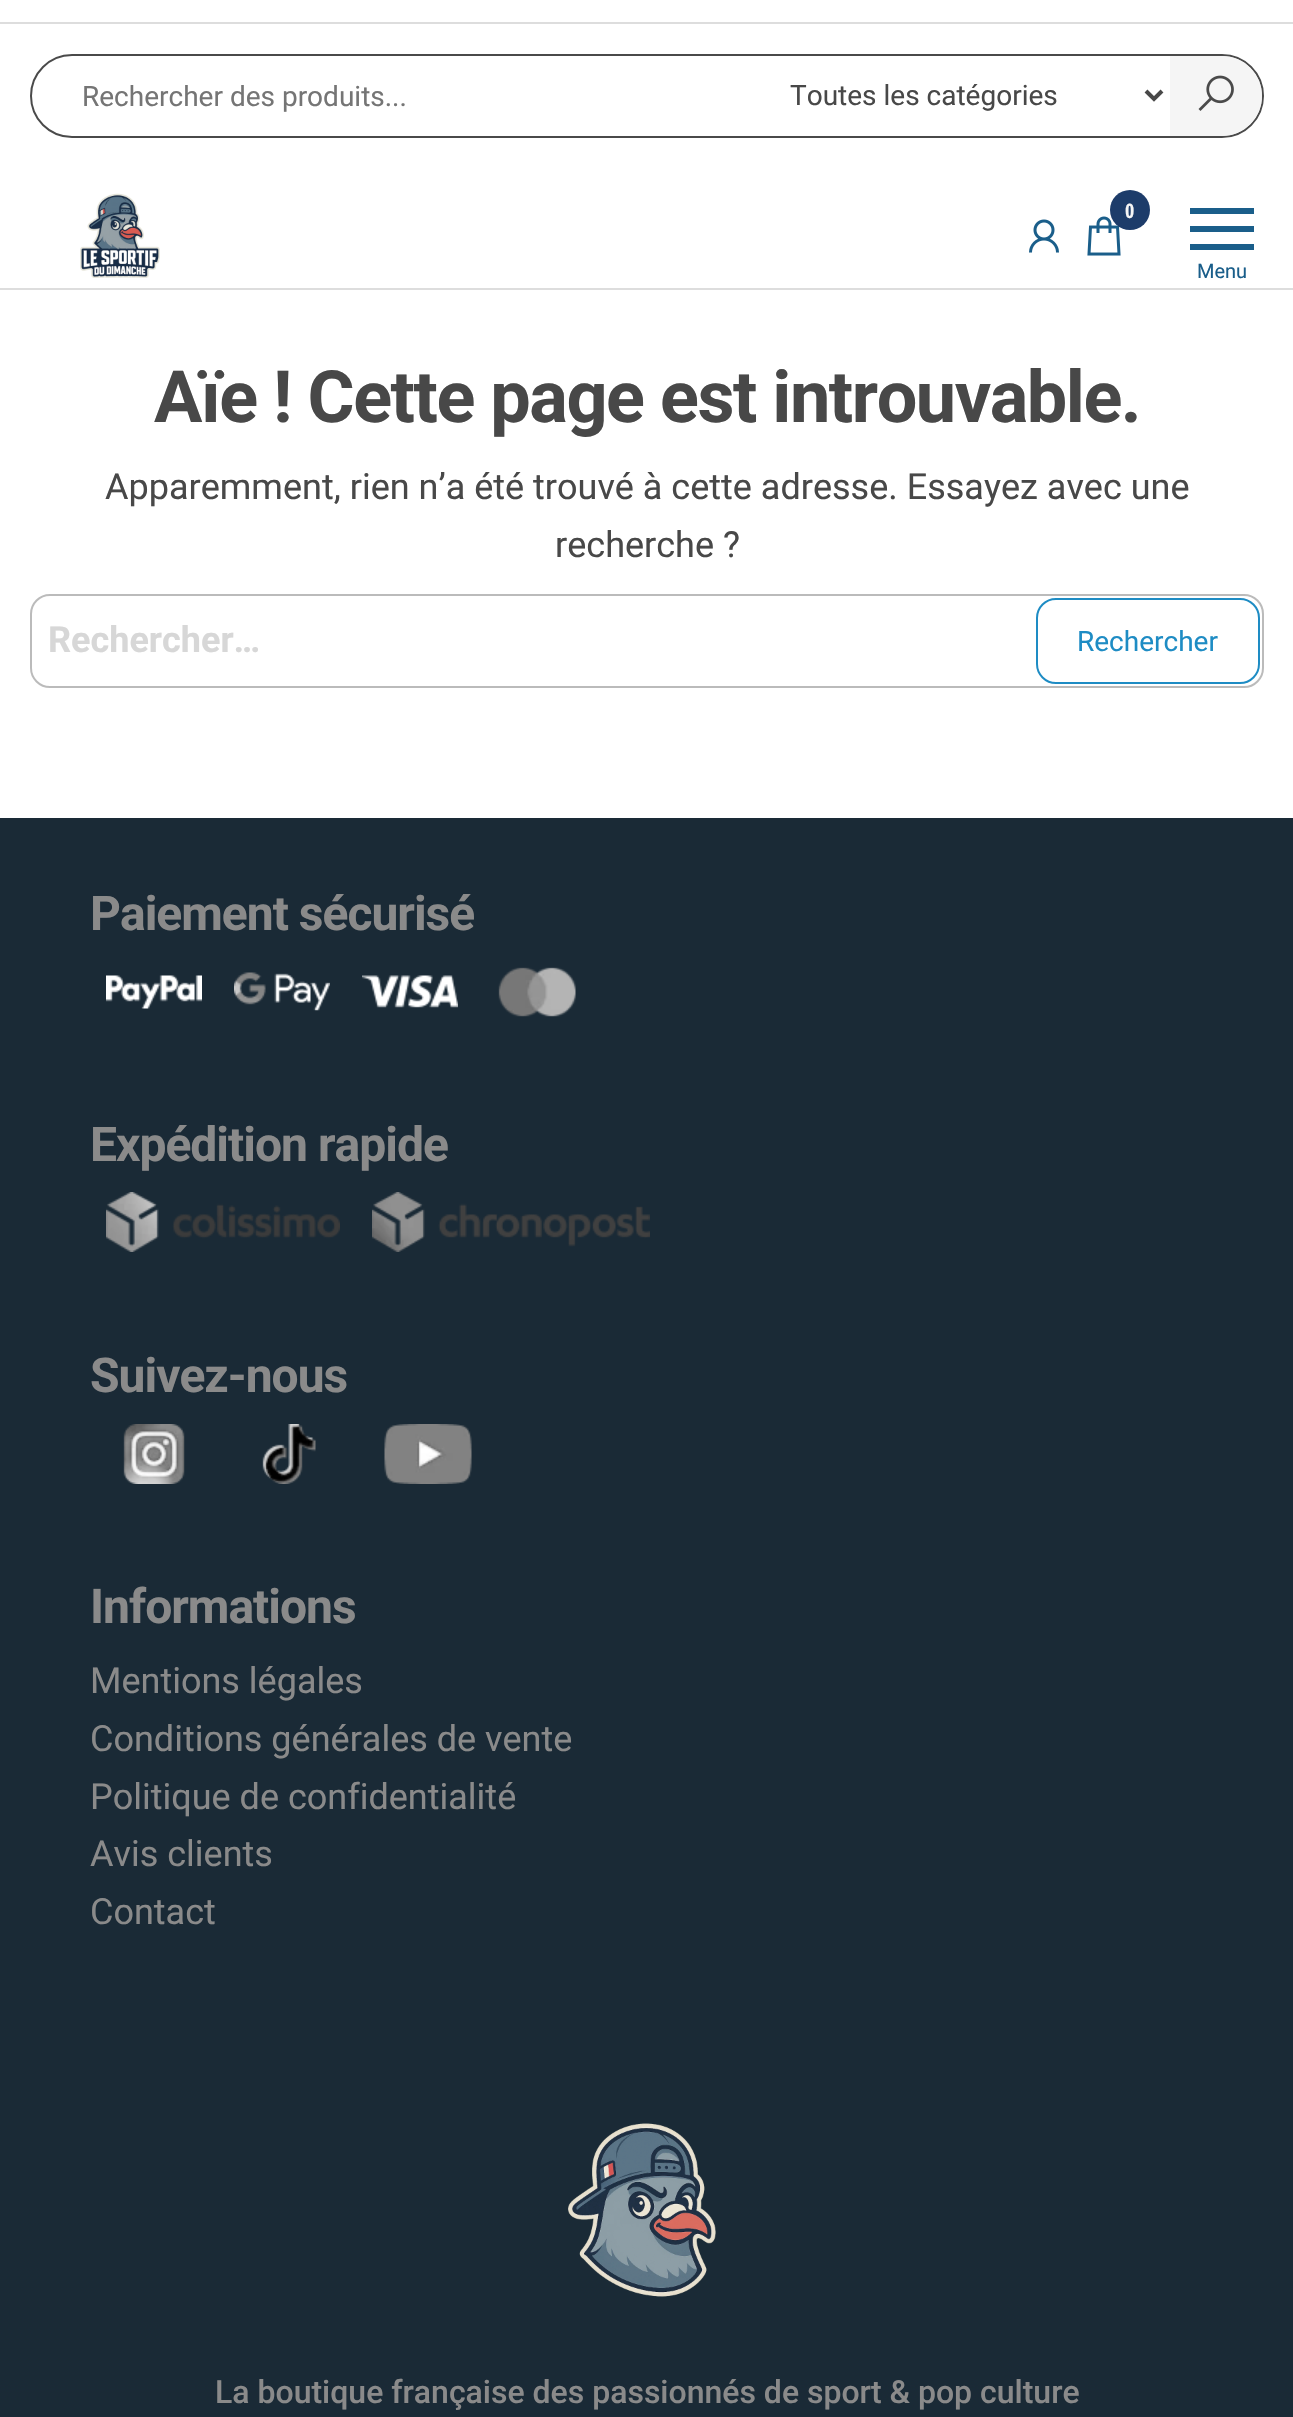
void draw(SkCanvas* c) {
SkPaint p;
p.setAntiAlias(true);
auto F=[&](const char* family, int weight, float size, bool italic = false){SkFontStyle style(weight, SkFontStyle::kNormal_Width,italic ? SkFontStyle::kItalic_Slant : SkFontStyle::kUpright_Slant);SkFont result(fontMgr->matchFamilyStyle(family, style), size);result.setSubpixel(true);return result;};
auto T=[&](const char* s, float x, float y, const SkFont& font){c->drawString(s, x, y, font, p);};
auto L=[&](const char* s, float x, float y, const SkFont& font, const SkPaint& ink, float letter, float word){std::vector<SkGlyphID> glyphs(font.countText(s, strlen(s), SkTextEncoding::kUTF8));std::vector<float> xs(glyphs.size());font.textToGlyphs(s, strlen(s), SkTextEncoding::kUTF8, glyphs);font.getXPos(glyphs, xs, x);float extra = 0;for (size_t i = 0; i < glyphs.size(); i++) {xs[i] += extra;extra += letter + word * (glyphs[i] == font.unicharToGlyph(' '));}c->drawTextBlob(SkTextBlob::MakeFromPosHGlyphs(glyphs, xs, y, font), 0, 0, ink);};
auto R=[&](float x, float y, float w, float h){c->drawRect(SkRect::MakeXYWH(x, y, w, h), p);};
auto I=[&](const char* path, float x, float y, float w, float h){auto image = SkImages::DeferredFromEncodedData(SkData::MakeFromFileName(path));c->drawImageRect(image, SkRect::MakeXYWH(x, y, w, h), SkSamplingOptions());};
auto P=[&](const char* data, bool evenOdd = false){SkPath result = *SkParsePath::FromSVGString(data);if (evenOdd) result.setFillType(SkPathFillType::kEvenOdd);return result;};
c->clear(0xffffffff);
p.setColor(0xffdddddd);
R(0,22,1293,2);
p.setStroke(true);
p.setStrokeWidth(2);
p.setColor(0xff4a4a4a);
c->drawRoundRect(SkRect::MakeXYWH(31,55,1232,82),41,41,p);
auto f1 = F("Roboto",400,28);
p.setStroke(false);
p.setColor(0xff757575);
T("Rechercher des produits...",82,106,f1);
p.setStroke(true);
p.setStrokeWidth(4);
p.setColor(0xff484848);
c->drawPath(P("M1146 91l8 8l8-8"),p);
p.setStroke(false);
T("Toutes les catégories",790,105,f1);
p.setColor(0xfff5f5f5);
c->drawPath(P("M1170 56h52c22 0 40 18 40 40c0 22-18 40-40 40h-52z"),p);
I("1.png",1198,75,36,36);
p.setColor(0xffdddddd);
R(0,288,1293,2);
I("2.png",80,193,80,85);
I("3.png",1029,219,30,34);
I("4.png",1087,216,34,40);
p.setColor(0xff1d3c6a);
c->drawCircle(1130,210,20,p);
auto f2 = F("Open Sans Condensed",700,20);
p.setColor(0xfff5f5f5);
T("0",1125,218,f2);
p.setColor(0xff1a5e8a);
R(1190,208,64,6);
R(1190,226,64,6);
R(1190,244,64,6);
auto f3 = F("Roboto",400,20);
T("Menu",1197,278,f3);
auto f4 = F("Roboto",700,72);
p.setColor(0xff484848);
L("Aïe ! Cette page est introuvable.",154,422,f4,p,-1.45,0);
auto f5 = F("Roboto",400,36);
T("Apparemment, rien n’a été trouvé à cette adresse. Essayez avec une",105,499,f5);
T("recherche ?",555,557,f5);
p.setStroke(true);
p.setStrokeWidth(2);
p.setColor(0xffbbbbbb);
c->drawRoundRect(SkRect::MakeXYWH(31,595,1232,92),19,19,p);
auto f6 = F("Roboto",700,36);
p.setStroke(false);
p.setColor(0xffd7d7d7);
T("Rechercher…",48,652,f6);
p.setStroke(true);
p.setColor(0xff1e8cc4);
c->drawRoundRect(SkRect::MakeXYWH(1037,599,222,84),19,19,p);
p.setStroke(false);
T("Rechercher",1077,651,f1);
p.setColor(0xff1a2a36);
R(0,818,1293,1599);
auto f7 = F("Roboto",700,48);
p.setColor(0xff8a8a8a);
L("Paiement sécurisé",90,930,f7,p,-1,0);
I("5.png",106,975,96,34);
I("6.png",234,972,96,39);
I("7.png",362,975,96,33);
I("8.png",498,967,78,50);
L("Expédition rapide",90,1161,f7,p,-1,0);
I("9.png",106,1192,234,60);
I("10.png",372,1192,278,60);
L("Suivez-nous",90,1392,f7,p,-1,0);
I("11.png",123,1424,62,60);
I("12.png",262,1424,54,60);
I("13.png",384,1424,88,60);
L("Informations",90,1623,f7,p,-1,0);
T("Mentions légales",90,1693,f5);
T("Conditions générales de vente",90,1751,f5);
T("Politique de confidentialité",90,1809,f5);
T("Avis clients",90,1866,f5);
T("Contact",90,1924,f5);
I("14.png",568,2123,148,174);
auto f8 = F("Roboto",500,32);
T("La boutique française des passionnés de sport & pop culture",215,2403,f8);
}
